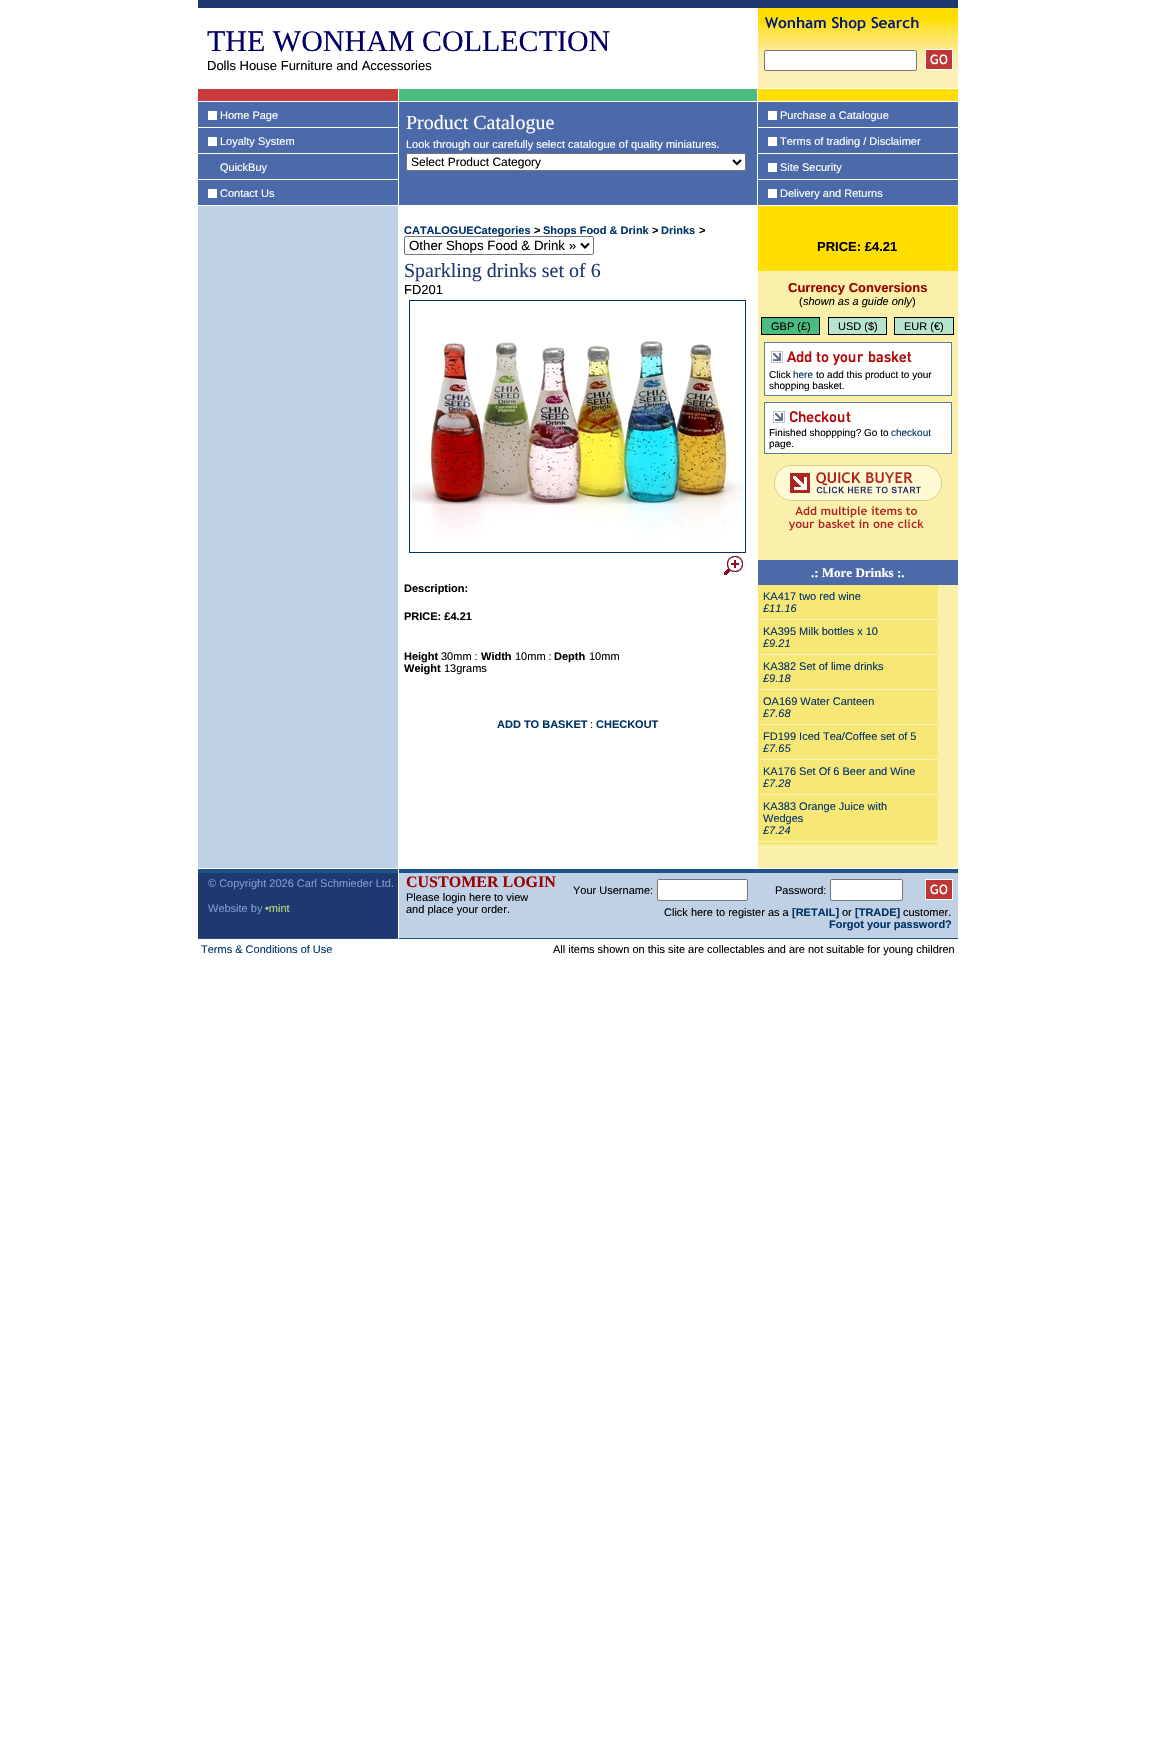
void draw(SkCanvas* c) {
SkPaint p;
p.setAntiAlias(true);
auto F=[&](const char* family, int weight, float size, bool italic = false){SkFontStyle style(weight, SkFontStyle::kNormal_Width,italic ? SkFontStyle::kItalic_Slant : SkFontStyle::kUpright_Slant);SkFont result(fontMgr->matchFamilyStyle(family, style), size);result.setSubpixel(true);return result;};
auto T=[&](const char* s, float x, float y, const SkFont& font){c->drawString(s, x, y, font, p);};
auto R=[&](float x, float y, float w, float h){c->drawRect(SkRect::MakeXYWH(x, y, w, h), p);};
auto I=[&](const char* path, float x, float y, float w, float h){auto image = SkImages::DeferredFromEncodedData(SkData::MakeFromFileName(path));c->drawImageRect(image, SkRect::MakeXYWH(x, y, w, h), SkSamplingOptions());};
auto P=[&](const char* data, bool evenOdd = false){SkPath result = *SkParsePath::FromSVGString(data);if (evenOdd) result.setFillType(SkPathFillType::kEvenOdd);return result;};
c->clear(0xffffffff);
p.setColor(0xff1f3870);
R(198,0,760,8);
auto f1 = F("Liberation Serif",400,30);
p.setColor(0xff000066);
T("THE WONHAM COLLECTION",207,51,f1);
auto f2 = F("Liberation Sans",400,13);
p.setColor(0xff000000);
T("Dolls House Furniture and Accessories",207,70,f2);
I("1.png",758,8,200,80);
p.setColor(0xffffffff);
c->drawRoundRect(SkRect::MakeXYWH(764.5,50.5,152,20),1.5,1.5,p);
p.setStroke(true);
p.setStrokeWidth(1);
p.setColor(0xff767676);
c->drawRoundRect(SkRect::MakeXYWH(764.5,50.5,152,20),1.5,1.5,p);
I("2.png",925,49,28,21);
p.setStroke(false);
p.setColor(0xffc73b3b);
R(198,89,200,12);
p.setColor(0xff4abc80);
R(399,89,358,12);
p.setColor(0xffffde00);
R(758,89,200,12);
p.setColor(0xff4c69a9);
R(198,102,200,103);
p.setColor(0xffffffff);
R(208,111,9,9);
auto f3 = F("Liberation Sans",400,11);
T("Home Page",220,119,f3);
R(198,127,200,1);
R(208,137,9,9);
T("Loyalty System",220,145,f3);
R(198,153,200,1);
T("QuickBuy",220,171,f3);
R(198,179,200,1);
R(208,189,9,9);
T("Contact Us",220,197,f3);
p.setColor(0xff4c69a9);
R(399,102,358,103);
auto f4 = F("Liberation Serif",400,20);
p.setColor(0xffffffff);
T("Product Catalogue",406,129,f4);
T("Look through our carefully select catalogue of quality miniatures.",406,148,f3);
c->drawRoundRect(SkRect::MakeXYWH(406.5,153.5,339,17),1.5,1.5,p);
p.setStroke(true);
p.setColor(0xff767676);
c->drawRoundRect(SkRect::MakeXYWH(406.5,153.5,339,17),1.5,1.5,p);
p.setStrokeWidth(2);
p.setColor(0xff000000);
c->drawPath(P("M733 160l4 4l4-4"),p);
auto f5 = F("Liberation Sans",400,12);
p.setStroke(false);
T("Select Product Category",411,166,f5);
p.setColor(0xff4c69a9);
R(758,102,200,103);
p.setColor(0xffffffff);
R(768,111,9,9);
T("Purchase a Catalogue",780,119,f3);
R(758,127,200,1);
R(768,137,9,9);
T("Terms of trading / Disclaimer",780,145,f3);
R(758,153,200,1);
R(768,163,9,9);
T("Site Security",780,171,f3);
R(758,179,200,1);
R(768,189,9,9);
T("Delivery and Returns",780,197,f3);
p.setColor(0xffc0d0e5);
R(198,206,200,662);
auto f6 = F("Liberation Sans",700,11);
p.setColor(0xff003366);
T("CATALOGUECategories",404,234,f6);
p.setColor(0xff000000);
T(">",534,234,f6);
p.setColor(0xff003366);
T("Shops Food & Drink",543,234,f6);
p.setColor(0xff000000);
T(">",652,234,f6);
p.setColor(0xff003366);
T("Drinks",661,234,f6);
p.setColor(0xff000000);
T(">",699,234,f6);
p.setColor(0xffffffff);
c->drawRoundRect(SkRect::MakeXYWH(404.5,236.5,189,18),1.5,1.5,p);
p.setStroke(true);
p.setStrokeWidth(1);
p.setColor(0xff767676);
c->drawRoundRect(SkRect::MakeXYWH(404.5,236.5,189,18),1.5,1.5,p);
p.setStrokeWidth(2);
p.setColor(0xff000000);
c->drawPath(P("M581 243.5l4 4l4-4"),p);
auto f7 = F("Liberation Sans",400,13.3);
p.setStroke(false);
T("Other Shops Food & Drink »",409,250,f7);
p.setColor(0xff1f3870);
T("Sparkling drinks set of 6",404,277,f4);
p.setColor(0xff000000);
T("FD201",404,294,f2);
p.setStroke(true);
p.setStrokeWidth(1);
p.setColor(0xff003366);
c->drawRect(SkRect::MakeXYWH(409.5,300.5,336,252),p);
I("3.png",410,341,334,202);
I("4.png",724,556,19,19);
p.setStroke(false);
p.setColor(0xff000000);
T("Description:",404,592,f6);
T("PRICE: £4.21",404,620,f6);
T("Height",404,660,f6);
T("30mm :",441,660,f3);
T("Width",481,660,f6);
T("10mm :",515,660,f3);
T("Depth",554,660,f6);
T("10mm",589,660,f3);
T("Weight",404,672,f6);
T("13grams",444,672,f3);
p.setColor(0xff003366);
T("ADD TO BASKET",497,728,f6);
p.setColor(0xff000000);
T(":",590,728,f3);
p.setColor(0xff003366);
T("CHECKOUT",596,728,f6);
p.setColor(0xfffaf0a9);
R(758,271,200,597);
p.setColor(0xffffde00);
R(758,206,200,65);
auto f8 = F("Liberation Sans",700,13);
p.setColor(0xff000000);
T("PRICE: £4.21",817,251,f8);
p.setColor(0xff990000);
T("Currency Conversions",788,292,f8);
p.setColor(0xff000000);
T("(",799,305,f3);
auto f9 = F("Liberation Sans",400,11,true);
T("shown as a guide only",803,305,f9);
T(")",912,305,f3);
R(761,317,59,18);
p.setColor(0xff4abc80);
R(762,318,57,16);
p.setColor(0xff000000);
T("GBP (£)",771,330,f3);
R(828,317,59,18);
p.setColor(0xffb7e4cc);
R(829,318,57,16);
p.setColor(0xff000000);
T("USD ($)",838,330,f3);
R(894,317,60,18);
p.setColor(0xffb7e4cc);
R(895,318,58,16);
p.setColor(0xff000000);
T("EUR (€)",904,330,f3);
p.setColor(0xffffffff);
c->drawRect(SkRect::MakeXYWH(764.5,342.5,187,53),p);
p.setStroke(true);
p.setColor(0xff637b9f);
c->drawRect(SkRect::MakeXYWH(764.5,342.5,187,53),p);
I("5.png",771,351,141,15);
auto f10 = F("Liberation Sans",400,10);
p.setStroke(false);
p.setColor(0xff000000);
T("Click",769,378,f10);
p.setColor(0xff003366);
T("here",793,378,f10);
p.setColor(0xff000000);
T("to add this product to your",816,378,f10);
T("shopping basket.",769,389,f10);
p.setColor(0xffffffff);
c->drawRect(SkRect::MakeXYWH(764.5,402.5,187,51),p);
p.setStroke(true);
p.setColor(0xff637b9f);
c->drawRect(SkRect::MakeXYWH(764.5,402.5,187,51),p);
I("6.png",773,411,78,12);
p.setStroke(false);
p.setColor(0xff000000);
T("Finished shoppping? Go to",769,436,f10);
p.setColor(0xff003366);
T("checkout",891,436,f10);
p.setColor(0xff000000);
T("page.",769,447,f10);
I("7.png",774,465,168,66);
p.setColor(0xff4c69a9);
R(758,560,200,25);
auto f11 = F("Liberation Serif",700,13);
p.setColor(0xffffffff);
T(".: More Drinks :.",811,577,f11);
p.setColor(0xfff7e776);
R(758,585,180,35);
p.setStroke(true);
p.setColor(0xffffffff);
p.setPathEffect(SkDashPathEffect::Make({{1,1}}, 0));
c->drawPath(P("M758 619.5h166"),p);
p.setPathEffect(nullptr);
p.setStroke(false);
p.setColor(0xff003366);
T("KA417 two red wine",763,600,f3);
T("£11.16",763,612,f9);
p.setStroke(true);
p.setColor(0xffffffff);
p.setPathEffect(SkDashPathEffect::Make({{1,1}}, 0));
c->drawPath(P("M924 619.5h14"),p);
p.setPathEffect(nullptr);
p.setStroke(false);
p.setColor(0xfff7e776);
R(758,620,180,35);
p.setStroke(true);
p.setColor(0xffffffff);
p.setPathEffect(SkDashPathEffect::Make({{1,1}}, 0));
c->drawPath(P("M758 654.5h166"),p);
p.setPathEffect(nullptr);
p.setStroke(false);
p.setColor(0xff003366);
T("KA395 Milk bottles x 10",763,635,f3);
T("£9.21",763,647,f9);
p.setStroke(true);
p.setColor(0xffffffff);
p.setPathEffect(SkDashPathEffect::Make({{1,1}}, 0));
c->drawPath(P("M924 654.5h14"),p);
p.setPathEffect(nullptr);
p.setStroke(false);
p.setColor(0xfff7e776);
R(758,655,180,35);
p.setStroke(true);
p.setColor(0xffffffff);
p.setPathEffect(SkDashPathEffect::Make({{1,1}}, 0));
c->drawPath(P("M758 689.5h166"),p);
p.setPathEffect(nullptr);
p.setStroke(false);
p.setColor(0xff003366);
T("KA382 Set of lime drinks",763,670,f3);
T("£9.18",763,682,f9);
p.setStroke(true);
p.setColor(0xffffffff);
p.setPathEffect(SkDashPathEffect::Make({{1,1}}, 0));
c->drawPath(P("M924 689.5h14"),p);
p.setPathEffect(nullptr);
p.setStroke(false);
p.setColor(0xfff7e776);
R(758,690,180,35);
p.setStroke(true);
p.setColor(0xffffffff);
p.setPathEffect(SkDashPathEffect::Make({{1,1}}, 0));
c->drawPath(P("M758 724.5h166"),p);
p.setPathEffect(nullptr);
p.setStroke(false);
p.setColor(0xff003366);
T("OA169 Water Canteen",763,705,f3);
T("£7.68",763,717,f9);
p.setStroke(true);
p.setColor(0xffffffff);
p.setPathEffect(SkDashPathEffect::Make({{1,1}}, 0));
c->drawPath(P("M924 724.5h14"),p);
p.setPathEffect(nullptr);
p.setStroke(false);
p.setColor(0xfff7e776);
R(758,725,180,35);
p.setStroke(true);
p.setColor(0xffffffff);
p.setPathEffect(SkDashPathEffect::Make({{1,1}}, 0));
c->drawPath(P("M758 759.5h166"),p);
p.setPathEffect(nullptr);
p.setStroke(false);
p.setColor(0xff003366);
T("FD199 Iced Tea/Coffee set of 5",763,740,f3);
T("£7.65",763,752,f9);
p.setStroke(true);
p.setColor(0xffffffff);
p.setPathEffect(SkDashPathEffect::Make({{1,1}}, 0));
c->drawPath(P("M924 759.5h14"),p);
p.setPathEffect(nullptr);
p.setStroke(false);
p.setColor(0xfff7e776);
R(758,760,180,35);
p.setStroke(true);
p.setColor(0xffffffff);
p.setPathEffect(SkDashPathEffect::Make({{1,1}}, 0));
c->drawPath(P("M758 794.5h166"),p);
p.setPathEffect(nullptr);
p.setStroke(false);
p.setColor(0xff003366);
T("KA176 Set Of 6 Beer and Wine",763,775,f3);
T("£7.28",763,787,f9);
p.setStroke(true);
p.setColor(0xffffffff);
p.setPathEffect(SkDashPathEffect::Make({{1,1}}, 0));
c->drawPath(P("M924 794.5h14"),p);
p.setPathEffect(nullptr);
p.setStroke(false);
p.setColor(0xfff7e776);
R(758,795,180,47);
p.setStroke(true);
p.setColor(0xffffffff);
p.setPathEffect(SkDashPathEffect::Make({{1,1}}, 0));
c->drawPath(P("M758 841.5h166"),p);
p.setPathEffect(nullptr);
p.setStroke(false);
p.setColor(0xff003366);
T("KA383 Orange Juice with",763,810,f3);
T("Wedges",763,822,f3);
T("£7.24",763,834,f9);
p.setStroke(true);
p.setColor(0xffffffff);
p.setPathEffect(SkDashPathEffect::Make({{1,1}}, 0));
c->drawPath(P("M924 841.5h14"),p);
p.setPathEffect(nullptr);
p.setStroke(false);
p.setColor(0xfff7e776);
R(758,842,180,3);
p.setColor(0xff1e5388);
R(198,869,200,4);
R(399,869,559,4);
p.setColor(0xff1f3870);
R(198,873,200,65);
p.setColor(0xff7a9ece);
T("© Copyright 2026 Carl Schmieder Ltd.",208,887,f3);
T("Website by",208,912,f3);
p.setColor(0xffb3d77c);
T("•mint",265,912,f3);
p.setColor(0xffc0d0e5);
R(399,873,559,65);
auto f12 = F("Liberation Serif",700,16);
p.setColor(0xff990000);
T("CUSTOMER LOGIN",406,887,f12);
p.setColor(0xff000000);
T("Please login here to view",406,901,f3);
T("and place your order.",406,913,f3);
T("Your Username:",573,894,f3);
p.setColor(0xffffffff);
c->drawRoundRect(SkRect::MakeXYWH(657.5,879.5,90,21),1.5,1.5,p);
p.setStroke(true);
p.setColor(0xff767676);
c->drawRoundRect(SkRect::MakeXYWH(657.5,879.5,90,21),1.5,1.5,p);
p.setStroke(false);
p.setColor(0xff000000);
T("Password:",775,894,f3);
p.setColor(0xffffffff);
c->drawRoundRect(SkRect::MakeXYWH(830.5,879.5,72,21),1.5,1.5,p);
p.setStroke(true);
p.setColor(0xff767676);
c->drawRoundRect(SkRect::MakeXYWH(830.5,879.5,72,21),1.5,1.5,p);
I("2.png",925,879,28,21);
p.setStroke(false);
p.setColor(0xff000000);
T("Click here to register as a",664,916,f3);
p.setColor(0xff003366);
T("[RETAIL]",792,916,f6);
p.setColor(0xff000000);
T("or",842,916,f3);
p.setColor(0xff003366);
T("[TRADE]",855,916,f6);
p.setColor(0xff000000);
T("customer.",903,916,f3);
p.setColor(0xff003366);
T("Forgot your password?",829,928,f6);
p.setColor(0xff1e5388);
R(198,938,200,1);
R(399,938,559,1);
p.setColor(0xff003366);
T("Terms & Conditions of Use",201,953,f3);
p.setColor(0xff000000);
T("All items shown on this site are collectables and are not suitable for young children",553,953,f3);
}
